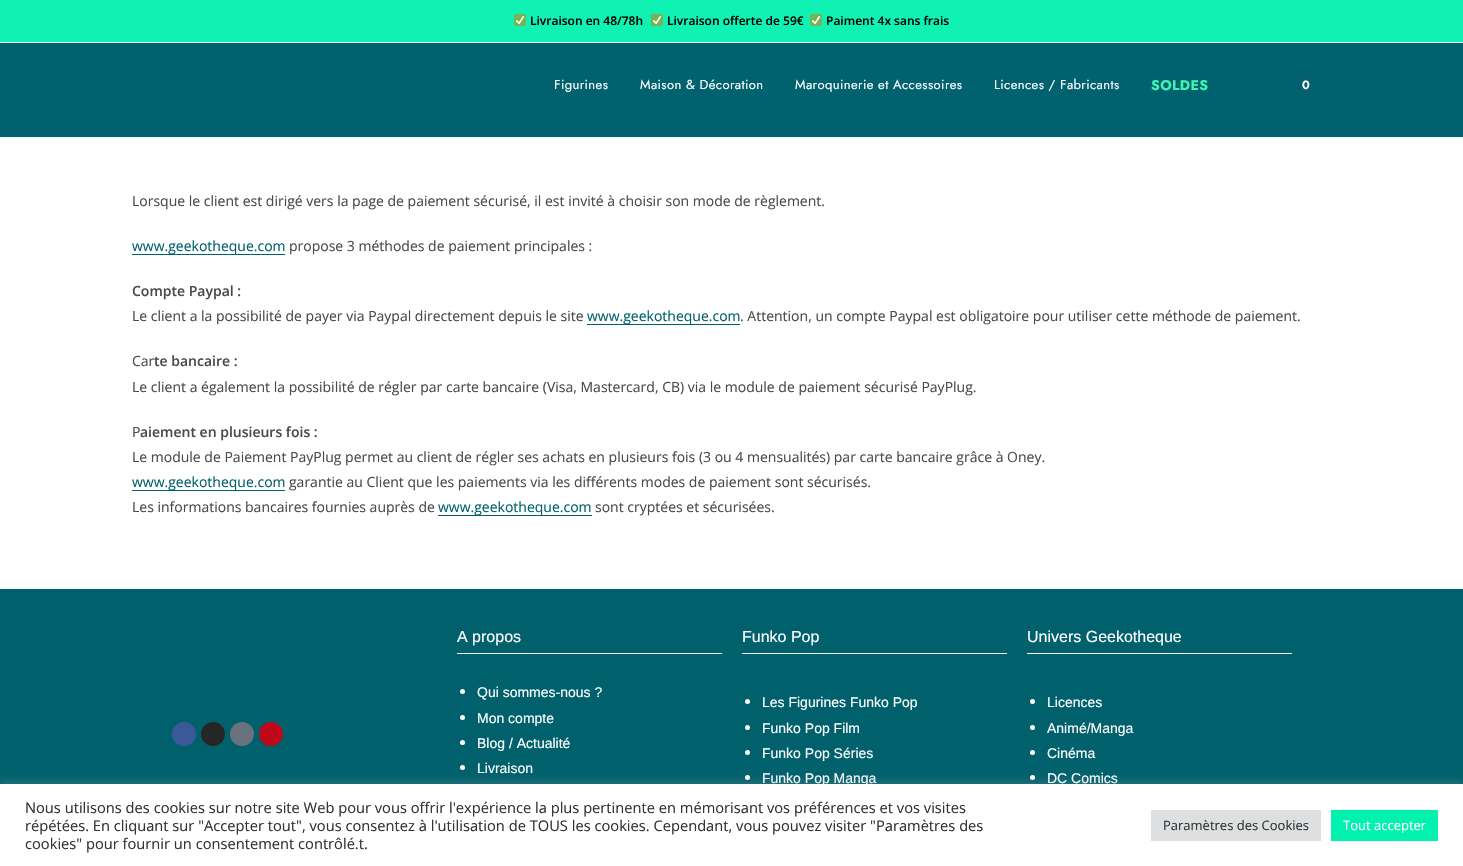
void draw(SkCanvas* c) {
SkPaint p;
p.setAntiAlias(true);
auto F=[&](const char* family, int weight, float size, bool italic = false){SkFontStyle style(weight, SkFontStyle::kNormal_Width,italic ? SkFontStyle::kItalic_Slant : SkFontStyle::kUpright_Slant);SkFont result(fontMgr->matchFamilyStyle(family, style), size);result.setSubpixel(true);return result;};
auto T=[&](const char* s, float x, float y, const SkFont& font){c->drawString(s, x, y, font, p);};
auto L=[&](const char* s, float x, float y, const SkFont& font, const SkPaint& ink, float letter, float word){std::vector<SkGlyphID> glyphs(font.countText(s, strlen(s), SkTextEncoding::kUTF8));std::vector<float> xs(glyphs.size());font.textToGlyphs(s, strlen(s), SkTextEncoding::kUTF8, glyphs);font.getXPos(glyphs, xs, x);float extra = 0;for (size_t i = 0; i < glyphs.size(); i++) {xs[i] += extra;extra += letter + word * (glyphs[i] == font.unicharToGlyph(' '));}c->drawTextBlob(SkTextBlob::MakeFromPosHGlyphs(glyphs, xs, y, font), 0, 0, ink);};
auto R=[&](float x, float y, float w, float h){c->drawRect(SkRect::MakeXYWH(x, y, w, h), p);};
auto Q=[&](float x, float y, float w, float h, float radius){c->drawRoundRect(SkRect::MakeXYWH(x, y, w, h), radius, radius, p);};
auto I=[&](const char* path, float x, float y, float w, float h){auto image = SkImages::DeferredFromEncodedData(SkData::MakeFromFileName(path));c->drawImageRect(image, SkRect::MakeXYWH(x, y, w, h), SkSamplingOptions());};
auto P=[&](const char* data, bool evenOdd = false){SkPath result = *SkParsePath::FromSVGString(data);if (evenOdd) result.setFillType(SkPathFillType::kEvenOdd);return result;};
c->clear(0xffffffff);
p.setColor(0xff0ff2b3);
R(0,0,1463,42);
p.setColor(0xfff1f1f1);
R(0,42,1463,1);
I("1.png",514,14,12,12);
auto f1 = F("Open Sans",600,12);
p.setColor(0xff000000);
T("Livraison en 48/78h",530,25,f1);
I("1.png",651,14,12,12);
T("Livraison offerte de 59€",667,25,f1);
I("1.png",810,14,12,12);
T("Paiment 4x sans frais",826,25,f1);
p.setColor(0xff00626e);
R(0,43,1463,94);
p.setColor(0xfff1f1f1);
R(0,137,1463,1);
auto f2 = F("Jost",400,13);
p.setColor(0xffffffff);
L("Figurines",554,89,f2,p,.4,0);
L("Maison & Décoration",640,89,f2,p,.4,0);
L("Maroquinerie et Accessoires",795,89,f2,p,.4,0);
L("Licences / Fabricants",994,89,f2,p,.4,0);
auto f3 = F("Jost",700,14);
p.setColor(0xff41f2b3);
L("SOLDES",1151,90,f3,p,.4,0);
p.setColor(0xff03606c);
Q(1297,76,17,18,2);
p.setColor(0xff00606c);
c->drawPath(P("M1299 80v10l-5-5z"),p);
auto f4 = F("Jost",600,12);
p.setColor(0xffffffff);
T("0",1302,89,f4);
auto f5 = F("Open Sans",400,14);
p.setColor(0xff4a4a4a);
T("Lorsque le client est dirigé vers la page de paiement sécurisé, il est invité à choisir son mode de règlement.",132,206,f5);
p.setColor(0xff00606c);
R(132,254,153,1);
T("www.geekotheque.com",132,251,f5);
p.setColor(0xff4a4a4a);
T("propose 3 méthodes de paiement principales :",289,251,f5);
auto f6 = F("Open Sans",600,14);
T("Compte Paypal :",132,296,f6);
T("Le client a la possibilité de payer via Paypal directement depuis le site",132,321,f5);
p.setColor(0xff00606c);
R(587,324,153,1);
T("www.geekotheque.com",587,321,f5);
p.setColor(0xff4a4a4a);
T(". Attention, un compte Paypal est obligatoire pour utiliser cette méthode de paiement.",740,321,f5);
T("Car",132,366,f5);
T("te bancaire :",154,366,f6);
T("Le client a également la possibilité de régler par carte bancaire (Visa, Mastercard, CB) via le module de paiement sécurisé PayPlug.",132,392,f5);
T("P",132,437,f5);
T("aiement en plusieurs fois :",140,437,f6);
T("Le module de Paiement PayPlug permet au client de régler ses achats en plusieurs fois (3 ou 4 mensualités) par carte bancaire grâce à Oney.",132,462,f5);
p.setColor(0xff00606c);
R(132,490,153,1);
T("www.geekotheque.com",132,487,f5);
p.setColor(0xff4a4a4a);
T("garantie au Client que les paiements via les différents modes de paiement sont sécurisés.",289,487,f5);
T("Les informations bancaires fournies auprès de",132,512,f5);
p.setColor(0xff00606c);
R(438,515,154,1);
T("www.geekotheque.com",438,512,f5);
p.setColor(0xff4a4a4a);
T("sont cryptées et sécurisées.",595,512,f5);
p.setColor(0xff00606c);
R(0,589,1463,195);
p.setColor(0xff3b5998);
c->drawCircle(184,734,12,p);
p.setColor(0xff262626);
c->drawCircle(213,734,12,p);
p.setColor(0xff69727d);
c->drawCircle(242,734,12,p);
p.setColor(0xffbd081c);
c->drawCircle(271,734,12,p);
p.setColor(0xffffffff);
R(457,653,265,1);
auto f7 = F("Liberation Sans",400,16);
T("A propos",457,642,f7);
c->drawCircle(462.5,691.5,2.5,p);
auto f8 = F("Liberation Sans",400,14);
T("Qui sommes-nous ?",477,697,f8);
c->drawCircle(462.5,717.5,2.5,p);
T("Mon compte",477,723,f8);
c->drawCircle(462.5,742.5,2.5,p);
T("Blog / Actualité",477,748,f8);
c->drawCircle(462.5,767.5,2.5,p);
T("Livraison",477,773,f8);
R(742,653,265,1);
T("Funko Pop",742,642,f7);
c->drawCircle(747.5,701.5,2.5,p);
T("Les Figurines Funko Pop",762,707,f8);
c->drawCircle(747.5,727.5,2.5,p);
T("Funko Pop Film",762,733,f8);
c->drawCircle(747.5,752.5,2.5,p);
T("Funko Pop Séries",762,758,f8);
c->drawCircle(747.5,777.5,2.5,p);
T("Funko Pop Manga",762,783,f8);
R(1027,653,265,1);
T("Univers Geekotheque",1027,642,f7);
c->drawCircle(1032.5,701.5,2.5,p);
T("Licences",1047,707,f8);
c->drawCircle(1032.5,727.5,2.5,p);
T("Animé/Manga",1047,733,f8);
c->drawCircle(1032.5,752.5,2.5,p);
T("Cinéma",1047,758,f8);
c->drawCircle(1032.5,777.5,2.5,p);
T("DC Comics",1047,783,f8);
p.setColor(0x4dacabab);
p.setMaskFilter(SkMaskFilter::MakeBlur(kNormal_SkBlurStyle, 5));
c->drawRect(SkRect::MakeXYWH(0,783,1463,82),p);
p.setMaskFilter(nullptr);
p.setColor(0xffffffff);
R(0,784,1463,82);
auto f9 = F("Open Sans",400,14.67);
p.setColor(0xff333333);
T("Nous utilisons des cookies sur notre site Web pour vous offrir l'expérience la plus pertinente en mémorisant vos préférences et vos visites",25,813,f9);
T("répétées. En cliquant sur \"Accepter tout\", vous consentez à l'utilisation de TOUS les cookies. Cependant, vous pouvez visiter \"Paramètres des",25,831,f9);
T("cookies\" pour fournir un consentement contrôlé.t.",25,849,f9);
p.setColor(0xffdedfe0);
R(1151,810,170,31);
auto f10 = F("Open Sans",400,13);
p.setColor(0xff333333);
T("Paramètres des Cookies",1163,830,f10);
p.setColor(0xff01f2ae);
R(1331,810,107,31);
p.setColor(0xffffffff);
T("Tout accepter",1343,830,f10);
}
